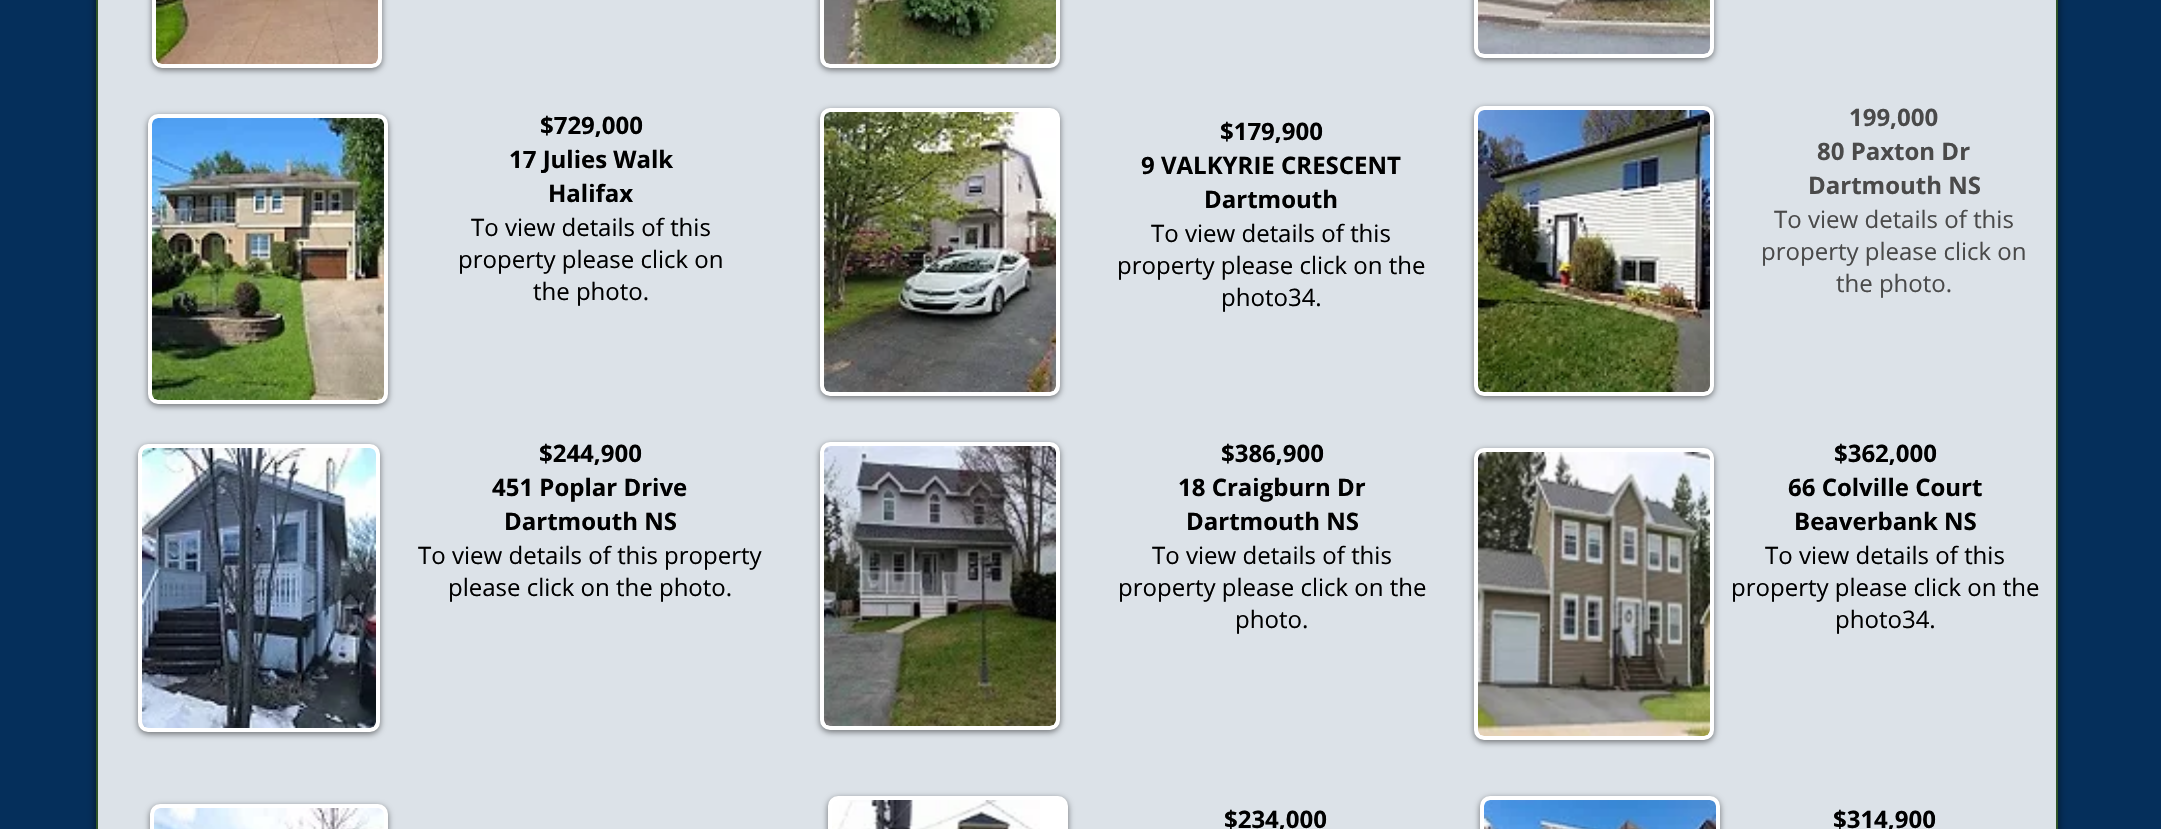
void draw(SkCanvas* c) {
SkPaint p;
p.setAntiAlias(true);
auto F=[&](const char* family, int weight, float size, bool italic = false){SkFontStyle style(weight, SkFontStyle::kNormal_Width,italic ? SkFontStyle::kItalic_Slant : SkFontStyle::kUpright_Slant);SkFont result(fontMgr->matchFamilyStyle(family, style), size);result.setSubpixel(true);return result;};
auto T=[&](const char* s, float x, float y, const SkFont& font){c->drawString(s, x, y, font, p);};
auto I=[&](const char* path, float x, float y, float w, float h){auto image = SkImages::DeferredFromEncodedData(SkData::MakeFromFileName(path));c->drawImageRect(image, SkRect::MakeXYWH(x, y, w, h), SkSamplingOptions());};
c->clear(0xff052f5b);
p.setColor(0x99000000);
p.setMaskFilter(SkMaskFilter::MakeBlur(kNormal_SkBlurStyle, 4));
c->drawRoundRect(SkRect::MakeXYWH(96,-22,1962,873),10,10,p);
p.setMaskFilter(nullptr);
p.setColor(0xffdce2e8);
c->drawRect(SkRect::MakeXYWH(97,-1,1960,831),p);
p.setStroke(true);
p.setStrokeWidth(2);
p.setColor(0xff2f5428);
c->drawRect(SkRect::MakeXYWH(97,-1,1960,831),p);
p.setStroke(false);
p.setColor(0x80000000);
p.setMaskFilter(SkMaskFilter::MakeBlur(kNormal_SkBlurStyle, 3));
c->drawRoundRect(SkRect::MakeXYWH(152,-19,230,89),10,10,p);
p.setMaskFilter(nullptr);
p.setColor(0xffffffff);
c->drawRoundRect(SkRect::MakeXYWH(154,-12,226,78),8,8,p);
p.setStroke(true);
p.setStrokeWidth(4);
c->drawRoundRect(SkRect::MakeXYWH(154,-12,226,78),8,8,p);
I("1.png",156,0,222,64);
p.setStroke(false);
p.setColor(0x80000000);
p.setMaskFilter(SkMaskFilter::MakeBlur(kNormal_SkBlurStyle, 3));
c->drawRoundRect(SkRect::MakeXYWH(820,-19,240,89),10,10,p);
p.setMaskFilter(nullptr);
p.setColor(0xffffffff);
c->drawRoundRect(SkRect::MakeXYWH(822,-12,236,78),8,8,p);
p.setStroke(true);
c->drawRoundRect(SkRect::MakeXYWH(822,-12,236,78),8,8,p);
I("2.png",824,0,232,64);
p.setStroke(false);
p.setColor(0x80000000);
p.setMaskFilter(SkMaskFilter::MakeBlur(kNormal_SkBlurStyle, 3));
c->drawRoundRect(SkRect::MakeXYWH(1474,-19,240,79),10,10,p);
p.setMaskFilter(nullptr);
p.setColor(0xffffffff);
c->drawRoundRect(SkRect::MakeXYWH(1476,-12,236,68),8,8,p);
p.setStroke(true);
c->drawRoundRect(SkRect::MakeXYWH(1476,-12,236,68),8,8,p);
I("3.png",1478,0,232,54);
p.setStroke(false);
p.setColor(0x80000000);
p.setMaskFilter(SkMaskFilter::MakeBlur(kNormal_SkBlurStyle, 3));
c->drawRoundRect(SkRect::MakeXYWH(148,116,240,290),10,10,p);
p.setMaskFilter(nullptr);
p.setColor(0xffffffff);
c->drawRoundRect(SkRect::MakeXYWH(150,116,236,286),8,8,p);
p.setStroke(true);
c->drawRoundRect(SkRect::MakeXYWH(150,116,236,286),8,8,p);
I("4.png",152,118,232,282);
auto f1 = F("Open Sans",700,24);
p.setStroke(false);
p.setColor(0xff000000);
T("$729,000",540,134,f1);
T("17 Julies Walk",509,168,f1);
T("Halifax",548,202,f1);
auto f2 = F("Open Sans",400,24);
T("To view details of this",471,236,f2);
T("property please click on",458,268,f2);
T("the photo.",533,300,f2);
p.setColor(0x80000000);
p.setMaskFilter(SkMaskFilter::MakeBlur(kNormal_SkBlurStyle, 3));
c->drawRoundRect(SkRect::MakeXYWH(820,110,240,288),10,10,p);
p.setMaskFilter(nullptr);
p.setColor(0xffffffff);
c->drawRoundRect(SkRect::MakeXYWH(822,110,236,284),8,8,p);
p.setStroke(true);
c->drawRoundRect(SkRect::MakeXYWH(822,110,236,284),8,8,p);
I("5.png",824,112,232,280);
p.setStroke(false);
p.setColor(0xff000000);
T("$179,900",1220,140,f1);
T("9 VALKYRIE CRESCENT",1141,174,f1);
T("Dartmouth",1204,208,f1);
T("To view details of this",1151,242,f2);
T("property please click on the",1117,274,f2);
T("photo34.",1221,306,f2);
p.setColor(0x80000000);
p.setMaskFilter(SkMaskFilter::MakeBlur(kNormal_SkBlurStyle, 3));
c->drawRoundRect(SkRect::MakeXYWH(1474,108,240,290),10,10,p);
p.setMaskFilter(nullptr);
p.setColor(0xffffffff);
c->drawRoundRect(SkRect::MakeXYWH(1476,108,236,286),8,8,p);
p.setStroke(true);
c->drawRoundRect(SkRect::MakeXYWH(1476,108,236,286),8,8,p);
I("6.png",1478,110,232,282);
p.setStroke(false);
p.setColor(0xff4a4a4a);
T("199,000",1849,126,f1);
T("80 Paxton Dr",1817,160,f1);
T("Dartmouth NS",1808,194,f1);
T("To view details of this",1774,228,f2);
T("property please click on",1761,260,f2);
T("the photo.",1836,292,f2);
p.setColor(0x80000000);
p.setMaskFilter(SkMaskFilter::MakeBlur(kNormal_SkBlurStyle, 3));
c->drawRoundRect(SkRect::MakeXYWH(138,446,242,288),10,10,p);
p.setMaskFilter(nullptr);
p.setColor(0xffffffff);
c->drawRoundRect(SkRect::MakeXYWH(140,446,238,284),8,8,p);
p.setStroke(true);
c->drawRoundRect(SkRect::MakeXYWH(140,446,238,284),8,8,p);
I("7.png",142,448,234,280);
p.setStroke(false);
p.setColor(0xff000000);
T("$244,900",539,462,f1);
T("451 Poplar Drive",492,496,f1);
T("Dartmouth NS",504,530,f1);
T("To view details of this property",418,564,f2);
T("please click on the photo.",448,596,f2);
p.setColor(0x80000000);
p.setMaskFilter(SkMaskFilter::MakeBlur(kNormal_SkBlurStyle, 3));
c->drawRoundRect(SkRect::MakeXYWH(820,444,240,288),10,10,p);
p.setMaskFilter(nullptr);
p.setColor(0xffffffff);
c->drawRoundRect(SkRect::MakeXYWH(822,444,236,284),8,8,p);
p.setStroke(true);
c->drawRoundRect(SkRect::MakeXYWH(822,444,236,284),8,8,p);
I("8.png",824,446,232,280);
p.setStroke(false);
p.setColor(0xff000000);
T("$386,900",1221,462,f1);
T("18 Craigburn Dr",1178,496,f1);
T("Dartmouth NS",1186,530,f1);
T("To view details of this",1152,564,f2);
T("property please click on the",1118,596,f2);
T("photo.",1235,628,f2);
p.setColor(0x80000000);
p.setMaskFilter(SkMaskFilter::MakeBlur(kNormal_SkBlurStyle, 3));
c->drawRoundRect(SkRect::MakeXYWH(1474,450,240,292),10,10,p);
p.setMaskFilter(nullptr);
p.setColor(0xffffffff);
c->drawRoundRect(SkRect::MakeXYWH(1476,450,236,288),8,8,p);
p.setStroke(true);
c->drawRoundRect(SkRect::MakeXYWH(1476,450,236,288),8,8,p);
I("9.png",1478,452,232,284);
p.setStroke(false);
p.setColor(0xff000000);
T("$362,000",1834,462,f1);
T("66 Colville Court",1788,496,f1);
T("Beaverbank NS",1794,530,f1);
T("To view details of this",1765,564,f2);
T("property please click on the",1731,596,f2);
T("photo34.",1835,628,f2);
p.setColor(0x80000000);
p.setMaskFilter(SkMaskFilter::MakeBlur(kNormal_SkBlurStyle, 3));
c->drawRoundRect(SkRect::MakeXYWH(150,806,238,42),10,10,p);
p.setMaskFilter(nullptr);
p.setColor(0xffffffff);
c->drawRoundRect(SkRect::MakeXYWH(152,806,234,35),8,8,p);
p.setStroke(true);
c->drawRoundRect(SkRect::MakeXYWH(152,806,234,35),8,8,p);
I("10.png",154,808,230,21);
p.setStroke(false);
p.setColor(0x80000000);
p.setMaskFilter(SkMaskFilter::MakeBlur(kNormal_SkBlurStyle, 3));
c->drawRoundRect(SkRect::MakeXYWH(828,798,240,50),10,10,p);
p.setMaskFilter(nullptr);
p.setColor(0xffffffff);
c->drawRoundRect(SkRect::MakeXYWH(830,798,236,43),8,8,p);
p.setStroke(true);
c->drawRoundRect(SkRect::MakeXYWH(830,798,236,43),8,8,p);
I("11.png",832,800,208,29);
p.setStroke(false);
p.setColor(0xff000000);
T("$234,000",1224,828,f1);
p.setColor(0x80000000);
p.setMaskFilter(SkMaskFilter::MakeBlur(kNormal_SkBlurStyle, 3));
c->drawRoundRect(SkRect::MakeXYWH(1480,798,240,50),10,10,p);
p.setMaskFilter(nullptr);
p.setColor(0xffffffff);
c->drawRoundRect(SkRect::MakeXYWH(1482,798,236,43),8,8,p);
p.setStroke(true);
c->drawRoundRect(SkRect::MakeXYWH(1482,798,236,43),8,8,p);
I("12.png",1484,800,232,29);
p.setStroke(false);
p.setColor(0xff000000);
T("$314,900",1833,828,f1);
}
